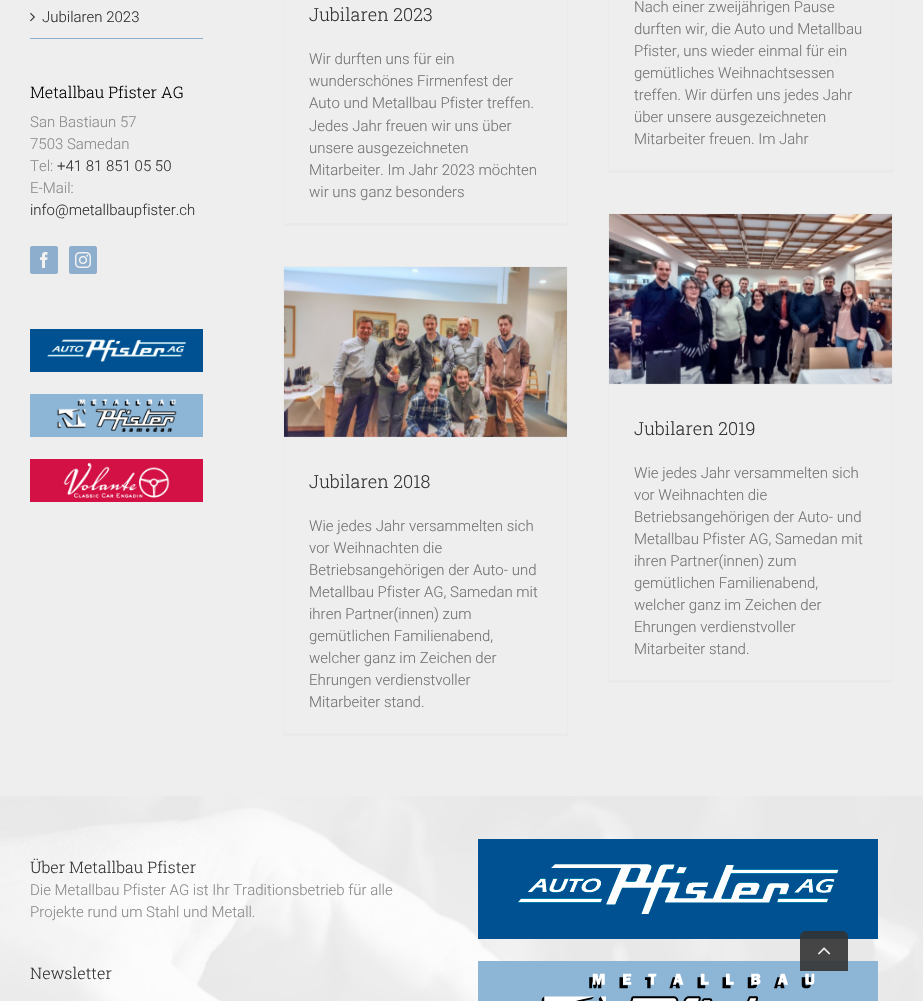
void draw(SkCanvas* c) {
SkPaint p;
p.setAntiAlias(true);
auto F=[&](const char* family, int weight, float size, bool italic = false){SkFontStyle style(weight, SkFontStyle::kNormal_Width,italic ? SkFontStyle::kItalic_Slant : SkFontStyle::kUpright_Slant);SkFont result(fontMgr->matchFamilyStyle(family, style), size);result.setSubpixel(true);return result;};
auto T=[&](const char* s, float x, float y, const SkFont& font){c->drawString(s, x, y, font, p);};
auto R=[&](float x, float y, float w, float h){c->drawRect(SkRect::MakeXYWH(x, y, w, h), p);};
auto I=[&](const char* path, float x, float y, float w, float h){auto image = SkImages::DeferredFromEncodedData(SkData::MakeFromFileName(path));c->drawImageRect(image, SkRect::MakeXYWH(x, y, w, h), SkSamplingOptions());};
auto P=[&](const char* data, bool evenOdd = false){SkPath result = *SkParsePath::FromSVGString(data);if (evenOdd) result.setFillType(SkPathFillType::kEvenOdd);return result;};
c->clear(0xffeeeeee);
p.setColor(0xff8eaece);
R(30,38,173,1);
I("1.png",30,12,5,10);
auto f1 = F("Roboto",300,15);
p.setColor(0xff333333);
T("Jubilaren 2023",42,22,f1);
auto f2 = F("Roboto Slab",300,16);
p.setColor(0xff000000);
T("Metallbau Pfister AG",30,98,f2);
p.setColor(0xff8c8989);
T("San Bastiaun 57",30,127,f1);
T("7503 Samedan",30,149,f1);
T("Tel:",30,171,f1);
p.setColor(0xff333333);
T("+41 81 851 05 50",57,171,f1);
p.setColor(0xff8c8989);
T("E-Mail:",30,193,f1);
p.setColor(0xff333333);
T("info@metallbaupfister.ch",30,215,f1);
p.setColor(0xff8eaece);
c->drawRoundRect(SkRect::MakeXYWH(30.5,246.5,27,27),1.5,1.5,p);
p.setStroke(true);
p.setStrokeWidth(1);
c->drawRoundRect(SkRect::MakeXYWH(30.5,246.5,27,27),1.5,1.5,p);
I("2.png",40,252,8,16);
p.setStroke(false);
c->drawRoundRect(SkRect::MakeXYWH(69.5,246.5,27,27),1.5,1.5,p);
p.setStroke(true);
c->drawRoundRect(SkRect::MakeXYWH(69.5,246.5,27,27),1.5,1.5,p);
I("3.png",75,252,16,16);
I("4.png",30,329,173,43);
I("5.png",30,394,173,43);
I("6.png",30,459,173,43);
p.setStroke(false);
p.setColor(0xffebeaea);
R(567,0,1,226);
R(283,223,285,3);
R(283,0,1,226);
auto f3 = F("Roboto Slab",300,18);
p.setColor(0xff333333);
T("Jubilaren 2023",309,21,f3);
p.setColor(0xff747474);
T("Wir durften uns für ein",309,64,f1);
T("wunderschönes Firmenfest der",309,86,f1);
T("Auto und Metallbau Pfister treffen.",309,108,f1);
T("Jedes Jahr freuen wir uns über",309,131,f1);
T("unsere ausgezeichneten",309,153,f1);
T("Mitarbeiter. Im Jahr 2023 möchten",309,175,f1);
T("wir uns ganz besonders",309,197,f1);
p.setColor(0xffebeaea);
R(892,0,1,173);
R(608,170,285,3);
R(608,0,1,173);
p.setColor(0xff747474);
T("Nach einer zweijährigen Pause",634,12,f1);
T("durften wir, die Auto und Metallbau",634,34,f1);
T("Pfister, uns wieder einmal für ein",634,56,f1);
T("gemütliches Weihnachtsessen",634,78,f1);
T("treffen. Wir dürfen uns jedes Jahr",634,100,f1);
T("über unsere ausgezeichneten",634,122,f1);
T("Mitarbeiter freuen. Im Jahr",634,144,f1);
p.setColor(0xffebeaea);
R(283,266,285,1);
R(567,266,1,470);
R(283,733,285,3);
R(283,266,1,470);
R(284,437,283,1);
I("7.png",284,267,283,170);
p.setColor(0xff333333);
T("Jubilaren 2018",309,488,f3);
p.setColor(0xff747474);
T("Wie jedes Jahr versammelten sich",309,531,f1);
T("vor Weihnachten die",309,553,f1);
T("Betriebsangehörigen der Auto- und",309,575,f1);
T("Metallbau Pfister AG, Samedan mit",309,597,f1);
T("ihren Partner(innen) zum",309,619,f1);
T("gemütlichen Familienabend,",309,641,f1);
T("welcher ganz im Zeichen der",309,663,f1);
T("Ehrungen verdienstvoller",309,685,f1);
T("Mitarbeiter stand.",309,707,f1);
p.setColor(0xffebeaea);
R(608,213,285,1);
R(892,213,1,470);
R(608,680,285,3);
R(608,213,1,470);
R(609,384,283,1);
I("8.png",609,214,283,170);
p.setColor(0xff333333);
T("Jubilaren 2019",634,435,f3);
p.setColor(0xff747474);
T("Wie jedes Jahr versammelten sich",634,478,f1);
T("vor Weihnachten die",634,500,f1);
T("Betriebsangehörigen der Auto- und",634,522,f1);
T("Metallbau Pfister AG, Samedan mit",634,544,f1);
T("ihren Partner(innen) zum",634,566,f1);
T("gemütlichen Familienabend,",634,588,f1);
T("welcher ganz im Zeichen der",634,610,f1);
T("Ehrungen verdienstvoller",634,632,f1);
T("Mitarbeiter stand.",634,654,f1);
I("9.png",0,796,923,205);
p.setColor(0xff333333);
T("Über Metallbau Pfister",30,873,f2);
p.setColor(0xff8c8989);
T("Die Metallbau Pfister AG ist Ihr Traditionsbetrieb für alle",30,895,f1);
T("Projekte rund um Stahl und Metall.",30,917,f1);
p.setColor(0xff333333);
T("Newsletter",30,979,f2);
I("10.png",478,839,400,100);
I("11.png",478,961,400,40);
p.setColor(0xe6333333);
c->drawPath(P("M806 931h36c3.5 0 6 2.5 6 6v34h-48v-34c0-3.5 2.5-6 6-6z"),p);
I("12.png",818,947,13,8);
}
